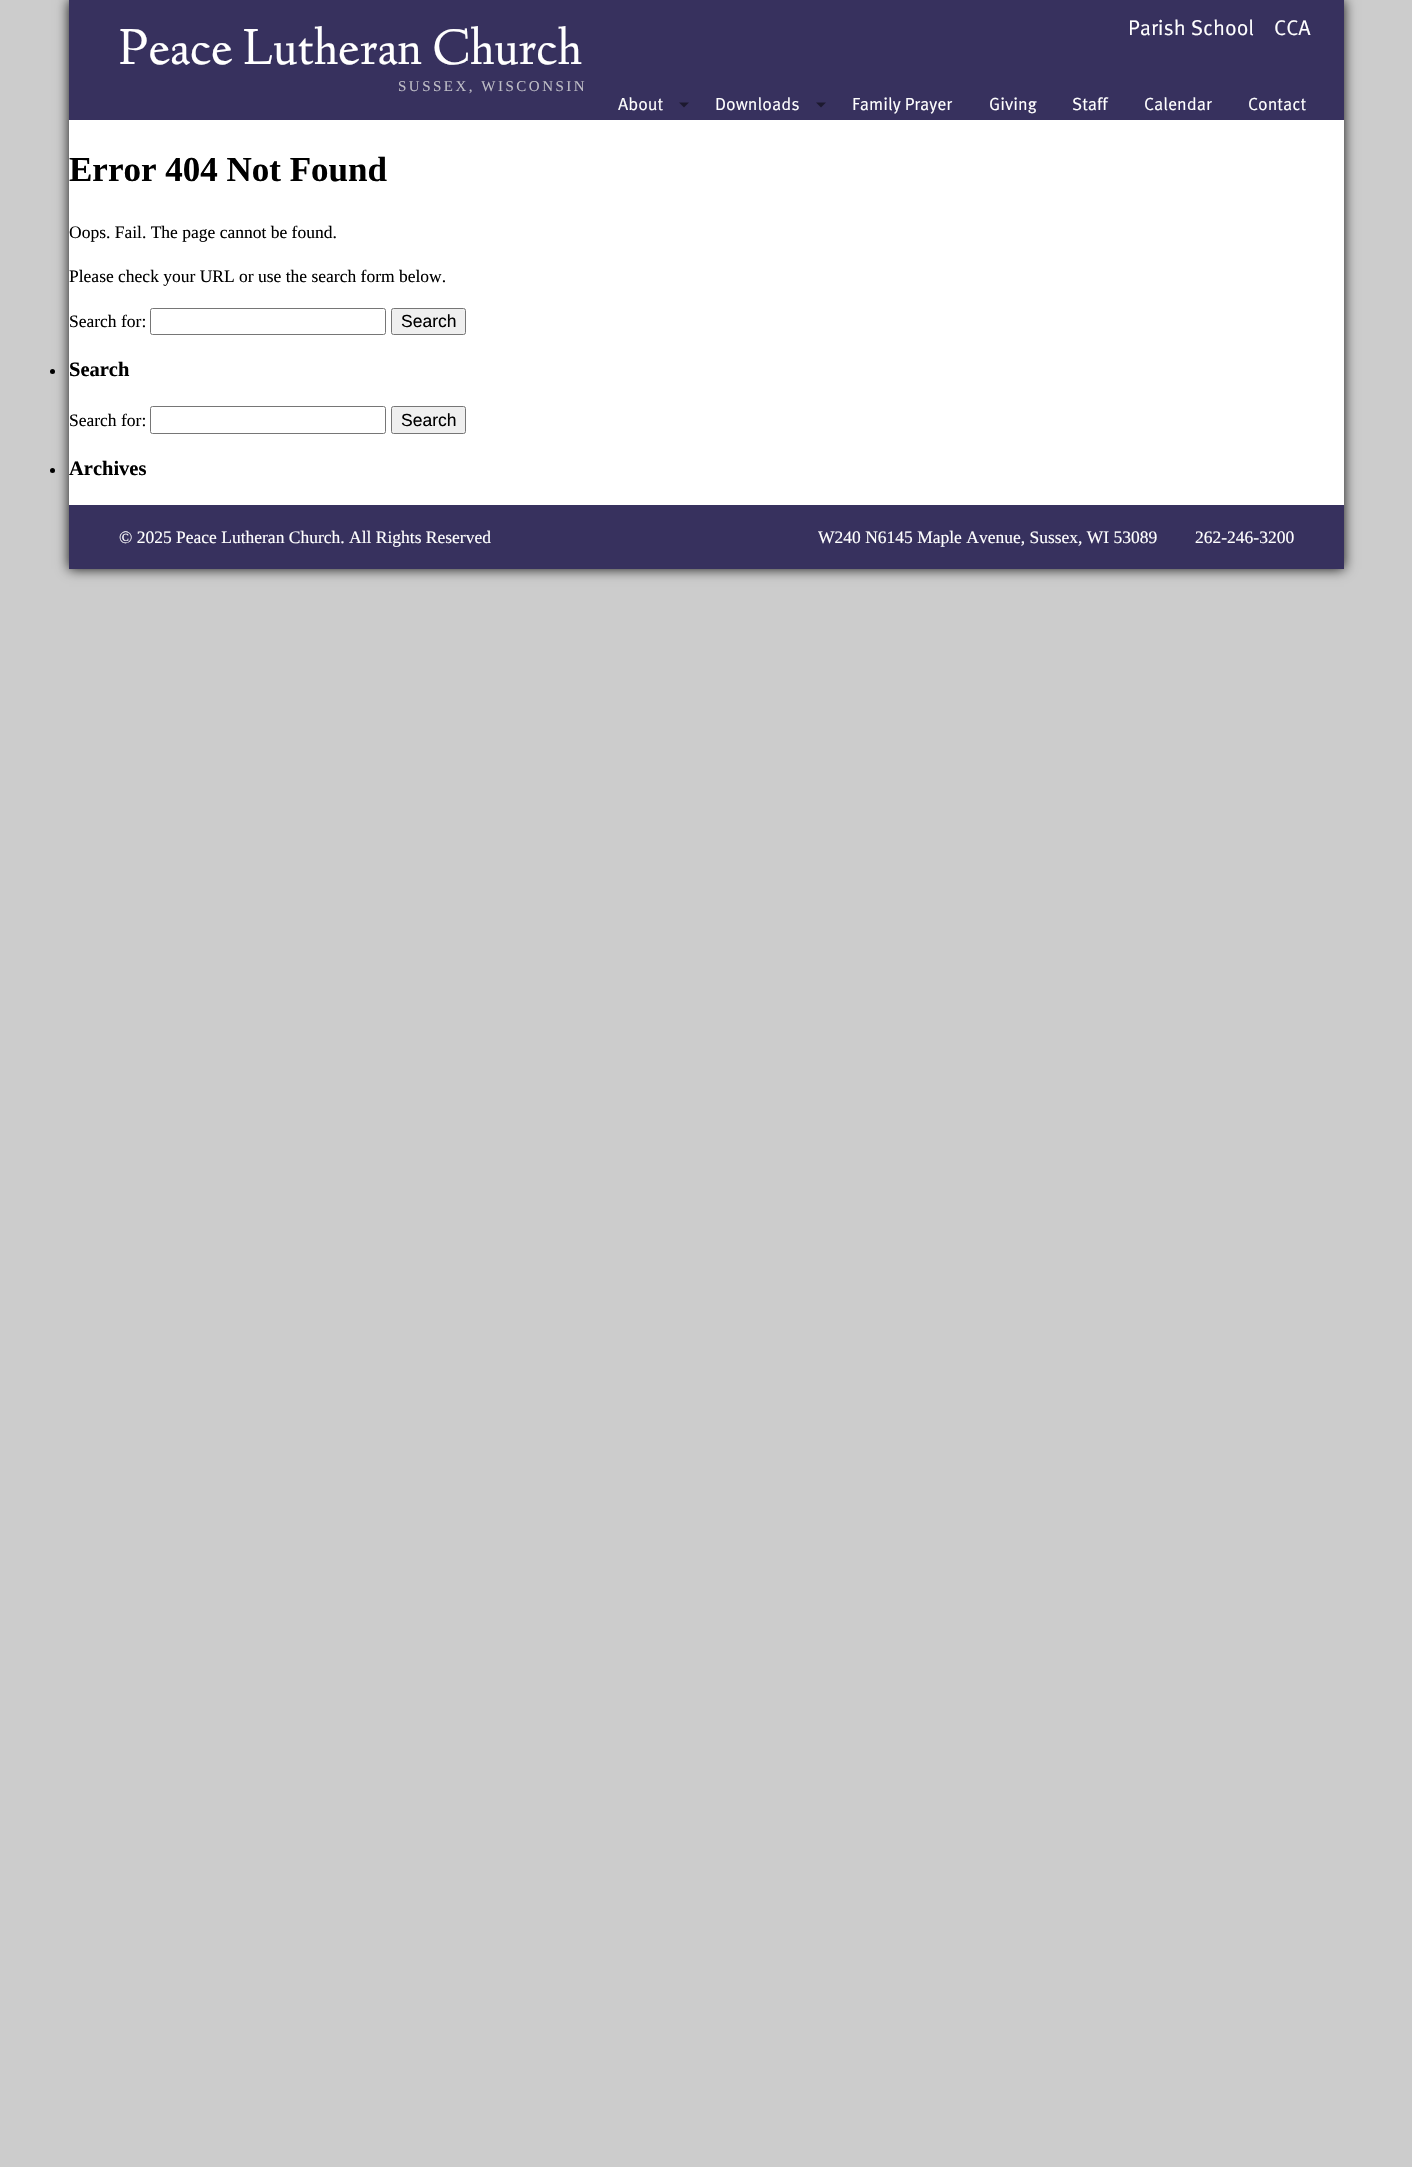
void draw(SkCanvas* c) {
SkPaint p;
p.setAntiAlias(true);
auto F=[&](const char* family, int weight, float size, bool italic = false){SkFontStyle style(weight, SkFontStyle::kNormal_Width,italic ? SkFontStyle::kItalic_Slant : SkFontStyle::kUpright_Slant);SkFont result(fontMgr->matchFamilyStyle(family, style), size);result.setSubpixel(true);return result;};
auto T=[&](const char* s, float x, float y, const SkFont& font){c->drawString(s, x, y, font, p);};
auto L=[&](const char* s, float x, float y, const SkFont& font, const SkPaint& ink, float letter, float word){std::vector<SkGlyphID> glyphs(font.countText(s, strlen(s), SkTextEncoding::kUTF8));std::vector<float> xs(glyphs.size());font.textToGlyphs(s, strlen(s), SkTextEncoding::kUTF8, glyphs);font.getXPos(glyphs, xs, x);float extra = 0;for (size_t i = 0; i < glyphs.size(); i++) {xs[i] += extra;extra += letter + word * (glyphs[i] == font.unicharToGlyph(' '));}c->drawTextBlob(SkTextBlob::MakeFromPosHGlyphs(glyphs, xs, y, font), 0, 0, ink);};
auto R=[&](float x, float y, float w, float h){c->drawRect(SkRect::MakeXYWH(x, y, w, h), p);};
auto P=[&](const char* data, bool evenOdd = false){SkPath result = *SkParsePath::FromSVGString(data);if (evenOdd) result.setFillType(SkPathFillType::kEvenOdd);return result;};
c->clear(0xffcccccc);
p.setColor(0xff111111);
p.setMaskFilter(SkMaskFilter::MakeBlur(kNormal_SkBlurStyle, 6));
c->drawRect(SkRect::MakeXYWH(69,0,1275,569),p);
p.setMaskFilter(nullptr);
p.setColor(0xffffffff);
R(69,120,1275,385);
p.setColor(0xff37315e);
R(69,0,1275,120);
auto f1 = F("Linden Hill",400,52.5);
p.setColor(0xffffffff);
T("Peace Lutheran Church",119,64,f1);
auto f2 = F("Liberation Serif",400,15);
p.setColor(0xffbebdc6);
L("SUSSEX, WISCONSIN",398,91,f2,p,2.5,0);
auto f3 = F("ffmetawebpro",400,21.25);
p.setColor(0xffffffff);
T("Parish School",1128,35,f3);
T("CCA",1274,35,f3);
auto f4 = F("ffmetawebpro",400,17.5);
T("About",618,110,f4);
p.setColor(0xff1c192f);
c->drawPath(P("M679 102.5h10l-5 5z"),p);
p.setColor(0xffffffff);
T("Downloads",715,110,f4);
p.setColor(0xff1c192f);
c->drawPath(P("M816 102.5h10l-5 5z"),p);
p.setColor(0xffffffff);
T("Family Prayer",852,110,f4);
T("Giving",989,110,f4);
T("Staff",1072,110,f4);
T("Calendar",1144,110,f4);
T("Contact",1248,110,f4);
auto f5 = F("Liberation Serif",700,35);
p.setColor(0xff000000);
T("Error 404 Not Found",69,181,f5);
auto f6 = F("Liberation Serif",400,17.5);
T("Oops. Fail. The page cannot be found.",69,238,f6);
T("Please check your URL or use the search form below.",69,282,f6);
T("Search for:",69,327,f6);
p.setStroke(true);
p.setStrokeWidth(1);
p.setColor(0xff767676);
c->drawRoundRect(SkRect::MakeXYWH(150.5,308.5,235,26),2,2,p);
p.setStroke(false);
p.setColor(0xffefefef);
c->drawRoundRect(SkRect::MakeXYWH(391.5,308.5,74,26),2,2,p);
p.setStroke(true);
p.setColor(0xff767676);
c->drawRoundRect(SkRect::MakeXYWH(391.5,308.5,74,26),2,2,p);
auto f7 = F("Liberation Sans",400,17.5);
p.setStroke(false);
p.setColor(0xff000000);
T("Search",401,327,f7);
c->drawCircle(52.5,371.5,2.5,p);
auto f8 = F("Liberation Serif",700,20.5);
T("Search",69,376,f8);
T("Search for:",69,426,f6);
p.setStroke(true);
p.setColor(0xff767676);
c->drawRoundRect(SkRect::MakeXYWH(150.5,406.5,235,27),2,2,p);
p.setStroke(false);
p.setColor(0xffefefef);
c->drawRoundRect(SkRect::MakeXYWH(391.5,406.5,74,27),2,2,p);
p.setStroke(true);
p.setColor(0xff767676);
c->drawRoundRect(SkRect::MakeXYWH(391.5,406.5,74,27),2,2,p);
p.setStroke(false);
p.setColor(0xff000000);
T("Search",401,426,f7);
c->drawCircle(52.5,470.5,2.5,p);
T("Archives",69,475,f8);
p.setColor(0xff37315e);
R(69,505,1275,64);
p.setColor(0xffffffff);
T("© 2025 Peace Lutheran Church. All Rights Reserved",119,543,f6);
T("W240 N6145 Maple Avenue, Sussex, WI 53089",818,543,f6);
T("262-246-3200",1195,543,f6);
}
